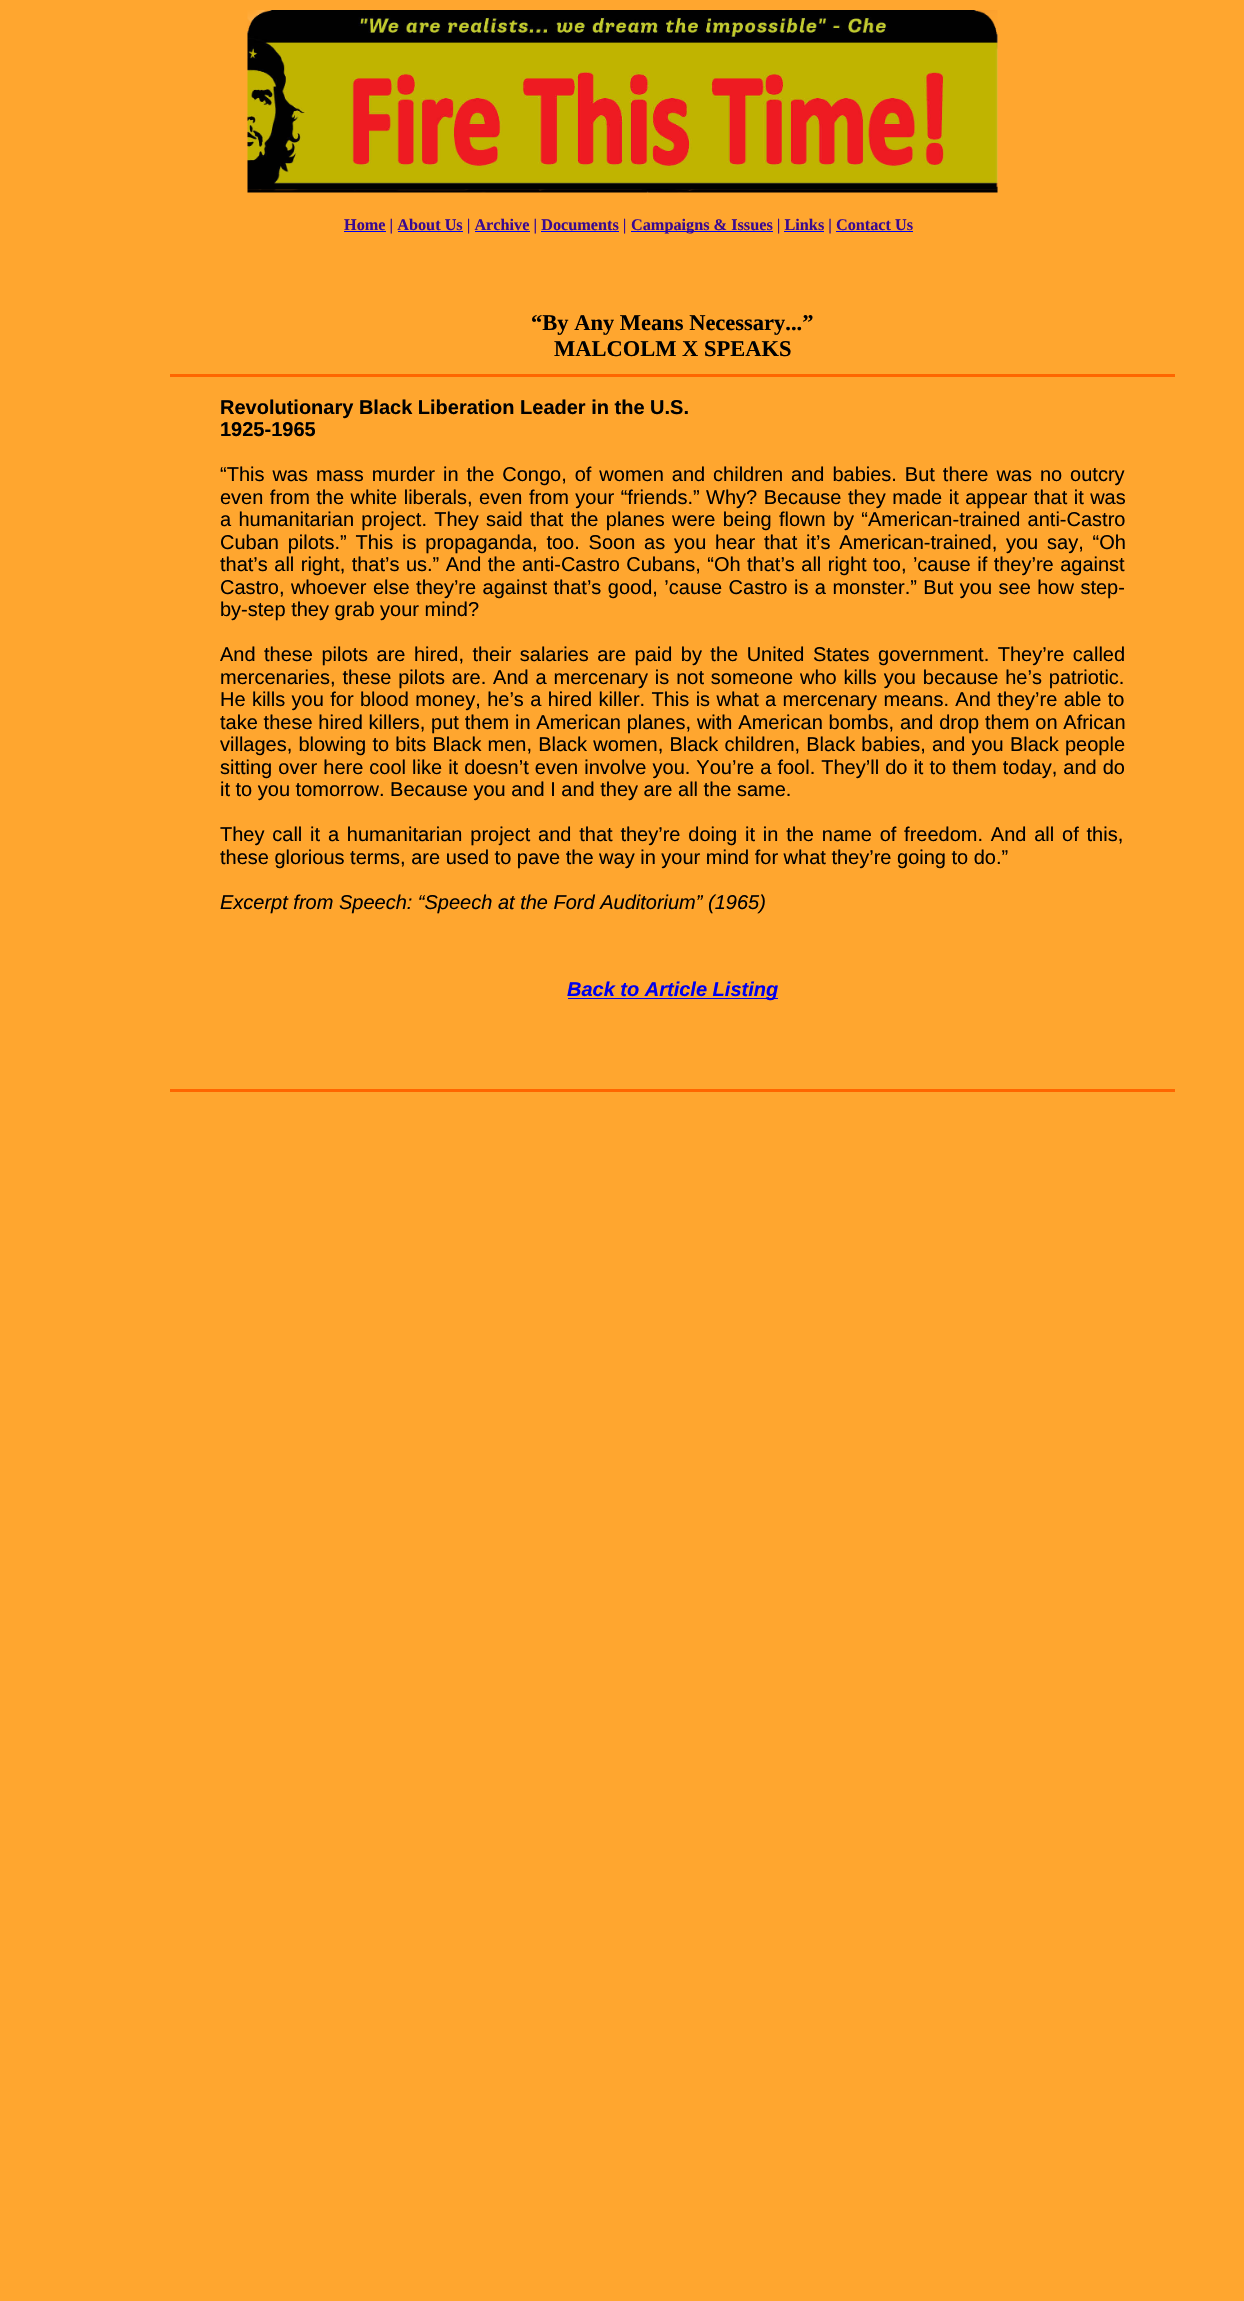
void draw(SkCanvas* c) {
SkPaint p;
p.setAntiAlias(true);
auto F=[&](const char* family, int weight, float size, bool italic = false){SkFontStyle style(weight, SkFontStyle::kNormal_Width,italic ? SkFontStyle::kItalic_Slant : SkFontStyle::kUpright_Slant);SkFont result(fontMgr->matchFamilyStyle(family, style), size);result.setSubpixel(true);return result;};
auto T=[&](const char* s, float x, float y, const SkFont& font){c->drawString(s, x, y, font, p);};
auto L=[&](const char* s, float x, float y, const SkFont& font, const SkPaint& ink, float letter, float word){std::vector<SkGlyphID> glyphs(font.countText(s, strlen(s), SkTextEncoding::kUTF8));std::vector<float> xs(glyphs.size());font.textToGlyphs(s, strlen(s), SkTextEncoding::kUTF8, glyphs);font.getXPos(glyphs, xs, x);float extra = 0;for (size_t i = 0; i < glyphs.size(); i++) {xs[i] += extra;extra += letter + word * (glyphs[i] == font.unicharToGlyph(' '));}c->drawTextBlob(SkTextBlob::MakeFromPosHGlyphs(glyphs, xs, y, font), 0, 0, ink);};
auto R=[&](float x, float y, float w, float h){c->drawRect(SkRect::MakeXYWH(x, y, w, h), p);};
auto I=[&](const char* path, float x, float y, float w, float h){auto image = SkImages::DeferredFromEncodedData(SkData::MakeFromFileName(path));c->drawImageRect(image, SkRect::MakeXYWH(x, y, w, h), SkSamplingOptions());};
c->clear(0xffffa62f);
I("1.png",247,10,751,183);
p.setColor(0xff0000ee);
R(344,231,42,1);
auto f1 = F("Liberation Serif",700,16.25);
p.setColor(0xff3a0990);
T("Home | About Us | Archive | Documents |",344,230,f1);
p.setColor(0xff0000ee);
R(398,231,65,1);
R(475,231,55,1);
R(541,231,78,1);
R(631,231,142,1);
p.setColor(0xff3a0990);
T("Campaigns & Issues | Links | Contact Us",631,230,f1);
p.setColor(0xff0000ee);
R(784,231,40,1);
R(836,231,77,1);
auto f2 = F("Liberation Serif",700,22.5);
p.setColor(0xff000000);
T("“By Any Means Necessary...”",531,330,f2);
T("MALCOLM X SPEAKS",554,356,f2);
p.setColor(0xffff6600);
R(170,374,1005,3);
auto f3 = F("Liberation Sans",700,20);
p.setColor(0xff000000);
T("Revolutionary Black Liberation Leader in the U.S.",220,414,f3);
T("1925-1965",220,436,f3);
auto f4 = F("Liberation Sans",400,20);
L("“This was mass murder in the Congo, of women and children and babies. But there was no outcry",220,481,f4,p,0,2.4);
L("even from the white liberals, even from your “friends.” Why? Because they made it appear that it was",220,504,f4,p,0,.9);
L("a humanitarian project. They said that the planes were being flown by “American-trained anti-Castro",220,526,f4,p,0,1.75);
L("Cuban pilots.” This is propaganda, too. Soon as you hear that it’s American-trained, you say, “Oh",220,549,f4,p,0,3.25);
L("that’s all right, that’s us.” And the anti-Castro Cubans, “Oh that’s all right too, ’cause if they’re against",220,571,f4,p,0,.9);
L("Castro, whoever else they’re against that’s good, ’cause Castro is a monster.” But you see how step-",220,594,f4,p,0,.9);
T("by-step they grab your mind?",220,616,f4);
L("And these pilots are hired, their salaries are paid by the United States government. They’re called",220,661,f4,p,0,2.9);
L("mercenaries, these pilots are. And a mercenary is not someone who kills you because he’s patriotic.",220,684,f4,p,0,1.3);
L("He kills you for blood money, he’s a hired killer. This is what a mercenary means. And they’re able to",220,706,f4,p,0,.8);
L("take these hired killers, put them in American planes, with American bombs, and drop them on African",220,729,f4,p,0,.25);
L("villages, blowing to bits Black men, Black women, Black children, Black babies, and you Black people",220,751,f4,p,0,.6);
L("sitting over here cool like it doesn’t even involve you. You’re a fool. They’ll do it to them today, and do",220,774,f4,p,0,.5);
T("it to you tomorrow. Because you and I and they are all the same.",220,796,f4);
L("They call it a humanitarian project and that they’re doing it in the name of freedom. And all of this,",220,841,f4,p,0,2.25);
T("these glorious terms, are used to pave the way in your mind for what they’re going to do.”",220,864,f4);
auto f5 = F("Liberation Sans",400,20,true);
T("Excerpt from Speech: “Speech at the Ford Auditorium” (1965)",220,909,f5);
p.setColor(0xff0000ee);
R(568,998,210,1);
auto f6 = F("Liberation Sans",700,20,true);
T("Back to Article Listing",567,996,f6);
p.setColor(0xffff6600);
R(170,1089,1005,3);
}
